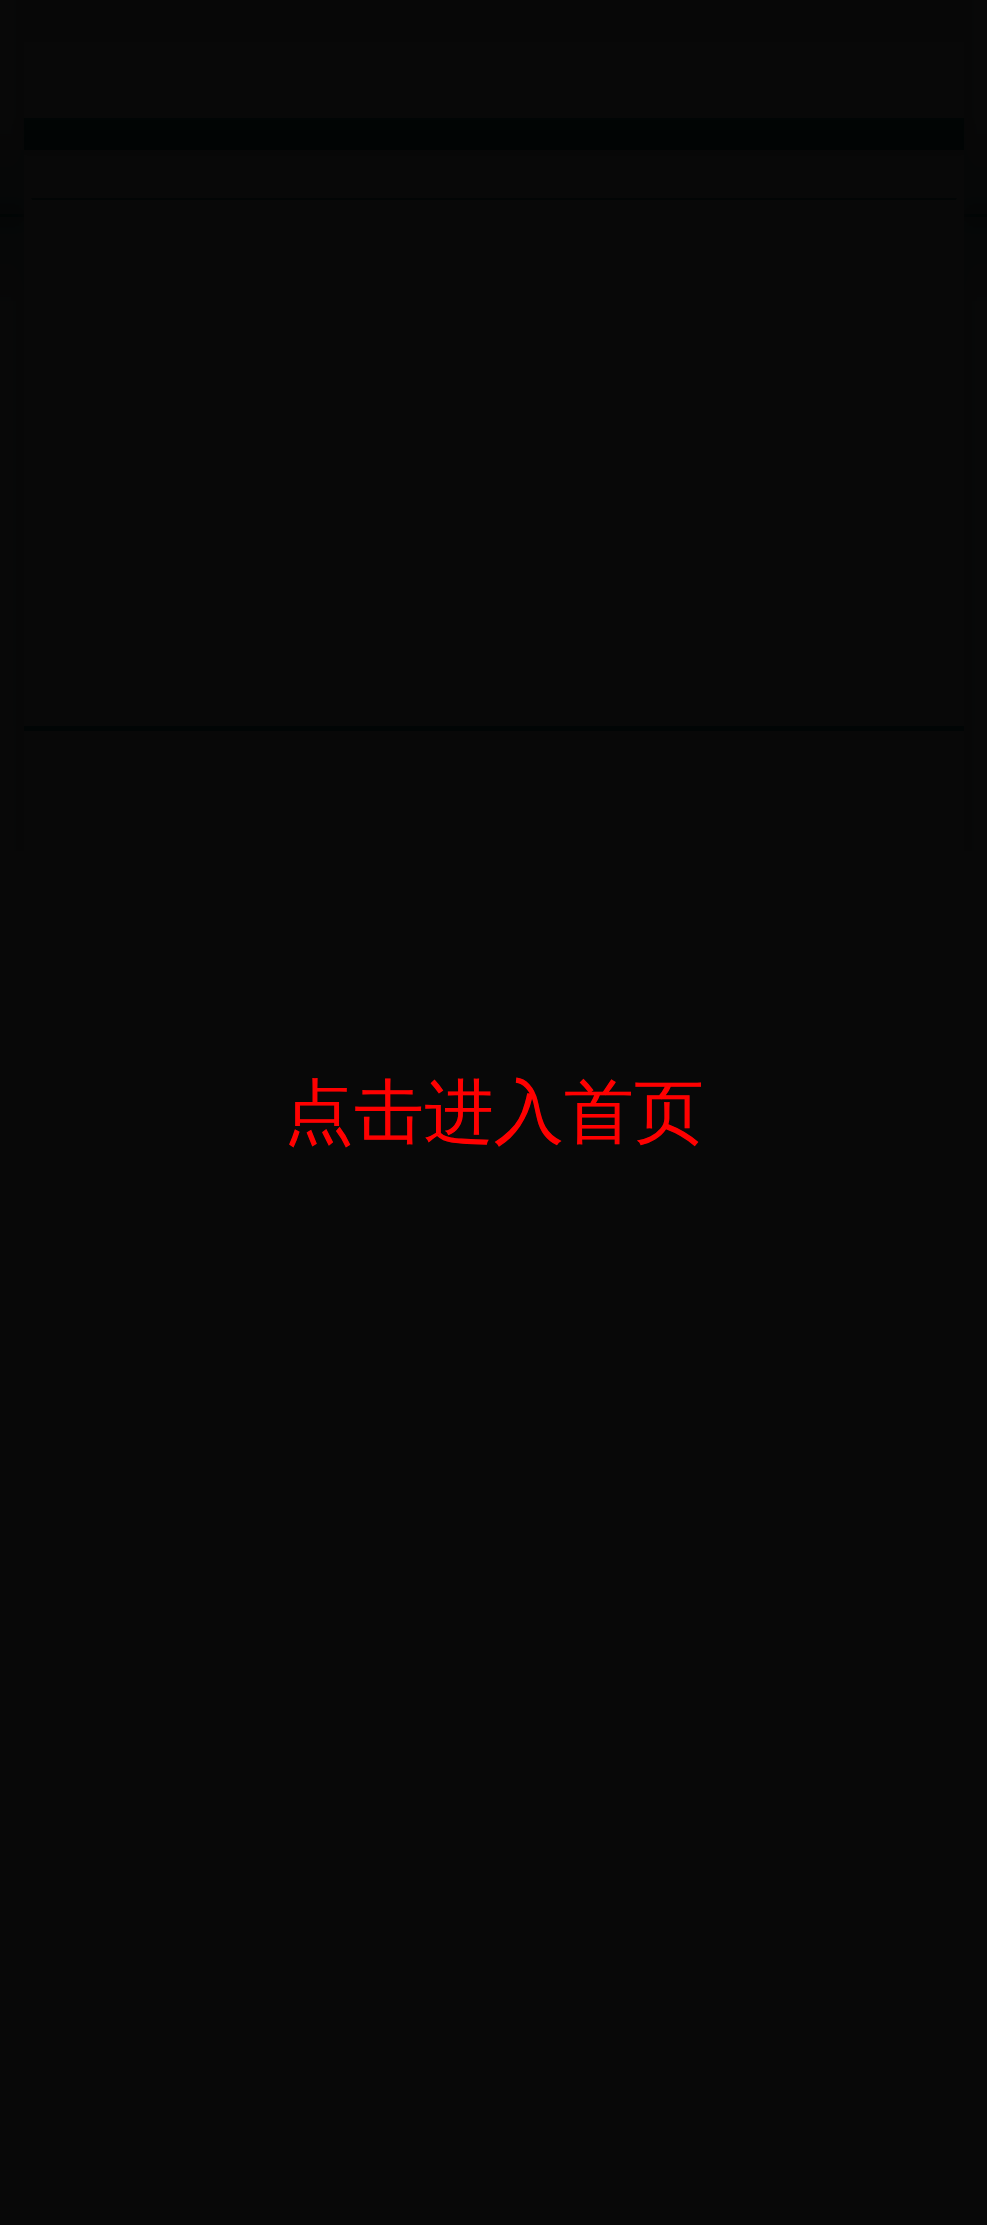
void draw(SkCanvas* c) {
SkPaint p;
p.setAntiAlias(true);
auto F=[&](const char* family, int weight, float size, bool italic = false){SkFontStyle style(weight, SkFontStyle::kNormal_Width,italic ? SkFontStyle::kItalic_Slant : SkFontStyle::kUpright_Slant);SkFont result(fontMgr->matchFamilyStyle(family, style), size);result.setSubpixel(true);return result;};
auto T=[&](const char* s, float x, float y, const SkFont& font){c->drawString(s, x, y, font, p);};
auto R=[&](float x, float y, float w, float h){c->drawRect(SkRect::MakeXYWH(x, y, w, h), p);};
auto I=[&](const char* path, float x, float y, float w, float h){auto image = SkImages::DeferredFromEncodedData(SkData::MakeFromFileName(path));c->drawImageRect(image, SkRect::MakeXYWH(x, y, w, h), SkSamplingOptions());};
auto P=[&](const char* data, bool evenOdd = false){SkPath result = *SkParsePath::FromSVGString(data);if (evenOdd) result.setFillType(SkPathFillType::kEvenOdd);return result;};
c->clear(0xff080808);
I("1.png",0,130,987,171);
I("2.png",14,0,960,118);
I("3.png",24,0,940,42);
I("4.png",11,118,966,32);
I("5.png",10,301,968,425);
I("6.png",10,150,968,151);
p.setColor(0xff020505);
c->drawPath(P("M31 198h926l-1 2h-924z"),p);
I("7.png",14,726,960,125);
p.setColor(0xff010505);
R(24,726,940,5);
auto f1 = F("WenQuanYi Zen Hei",500,70);
p.setColor(0xffff0000);
T("点击进入首页",284,1136,f1);
}
